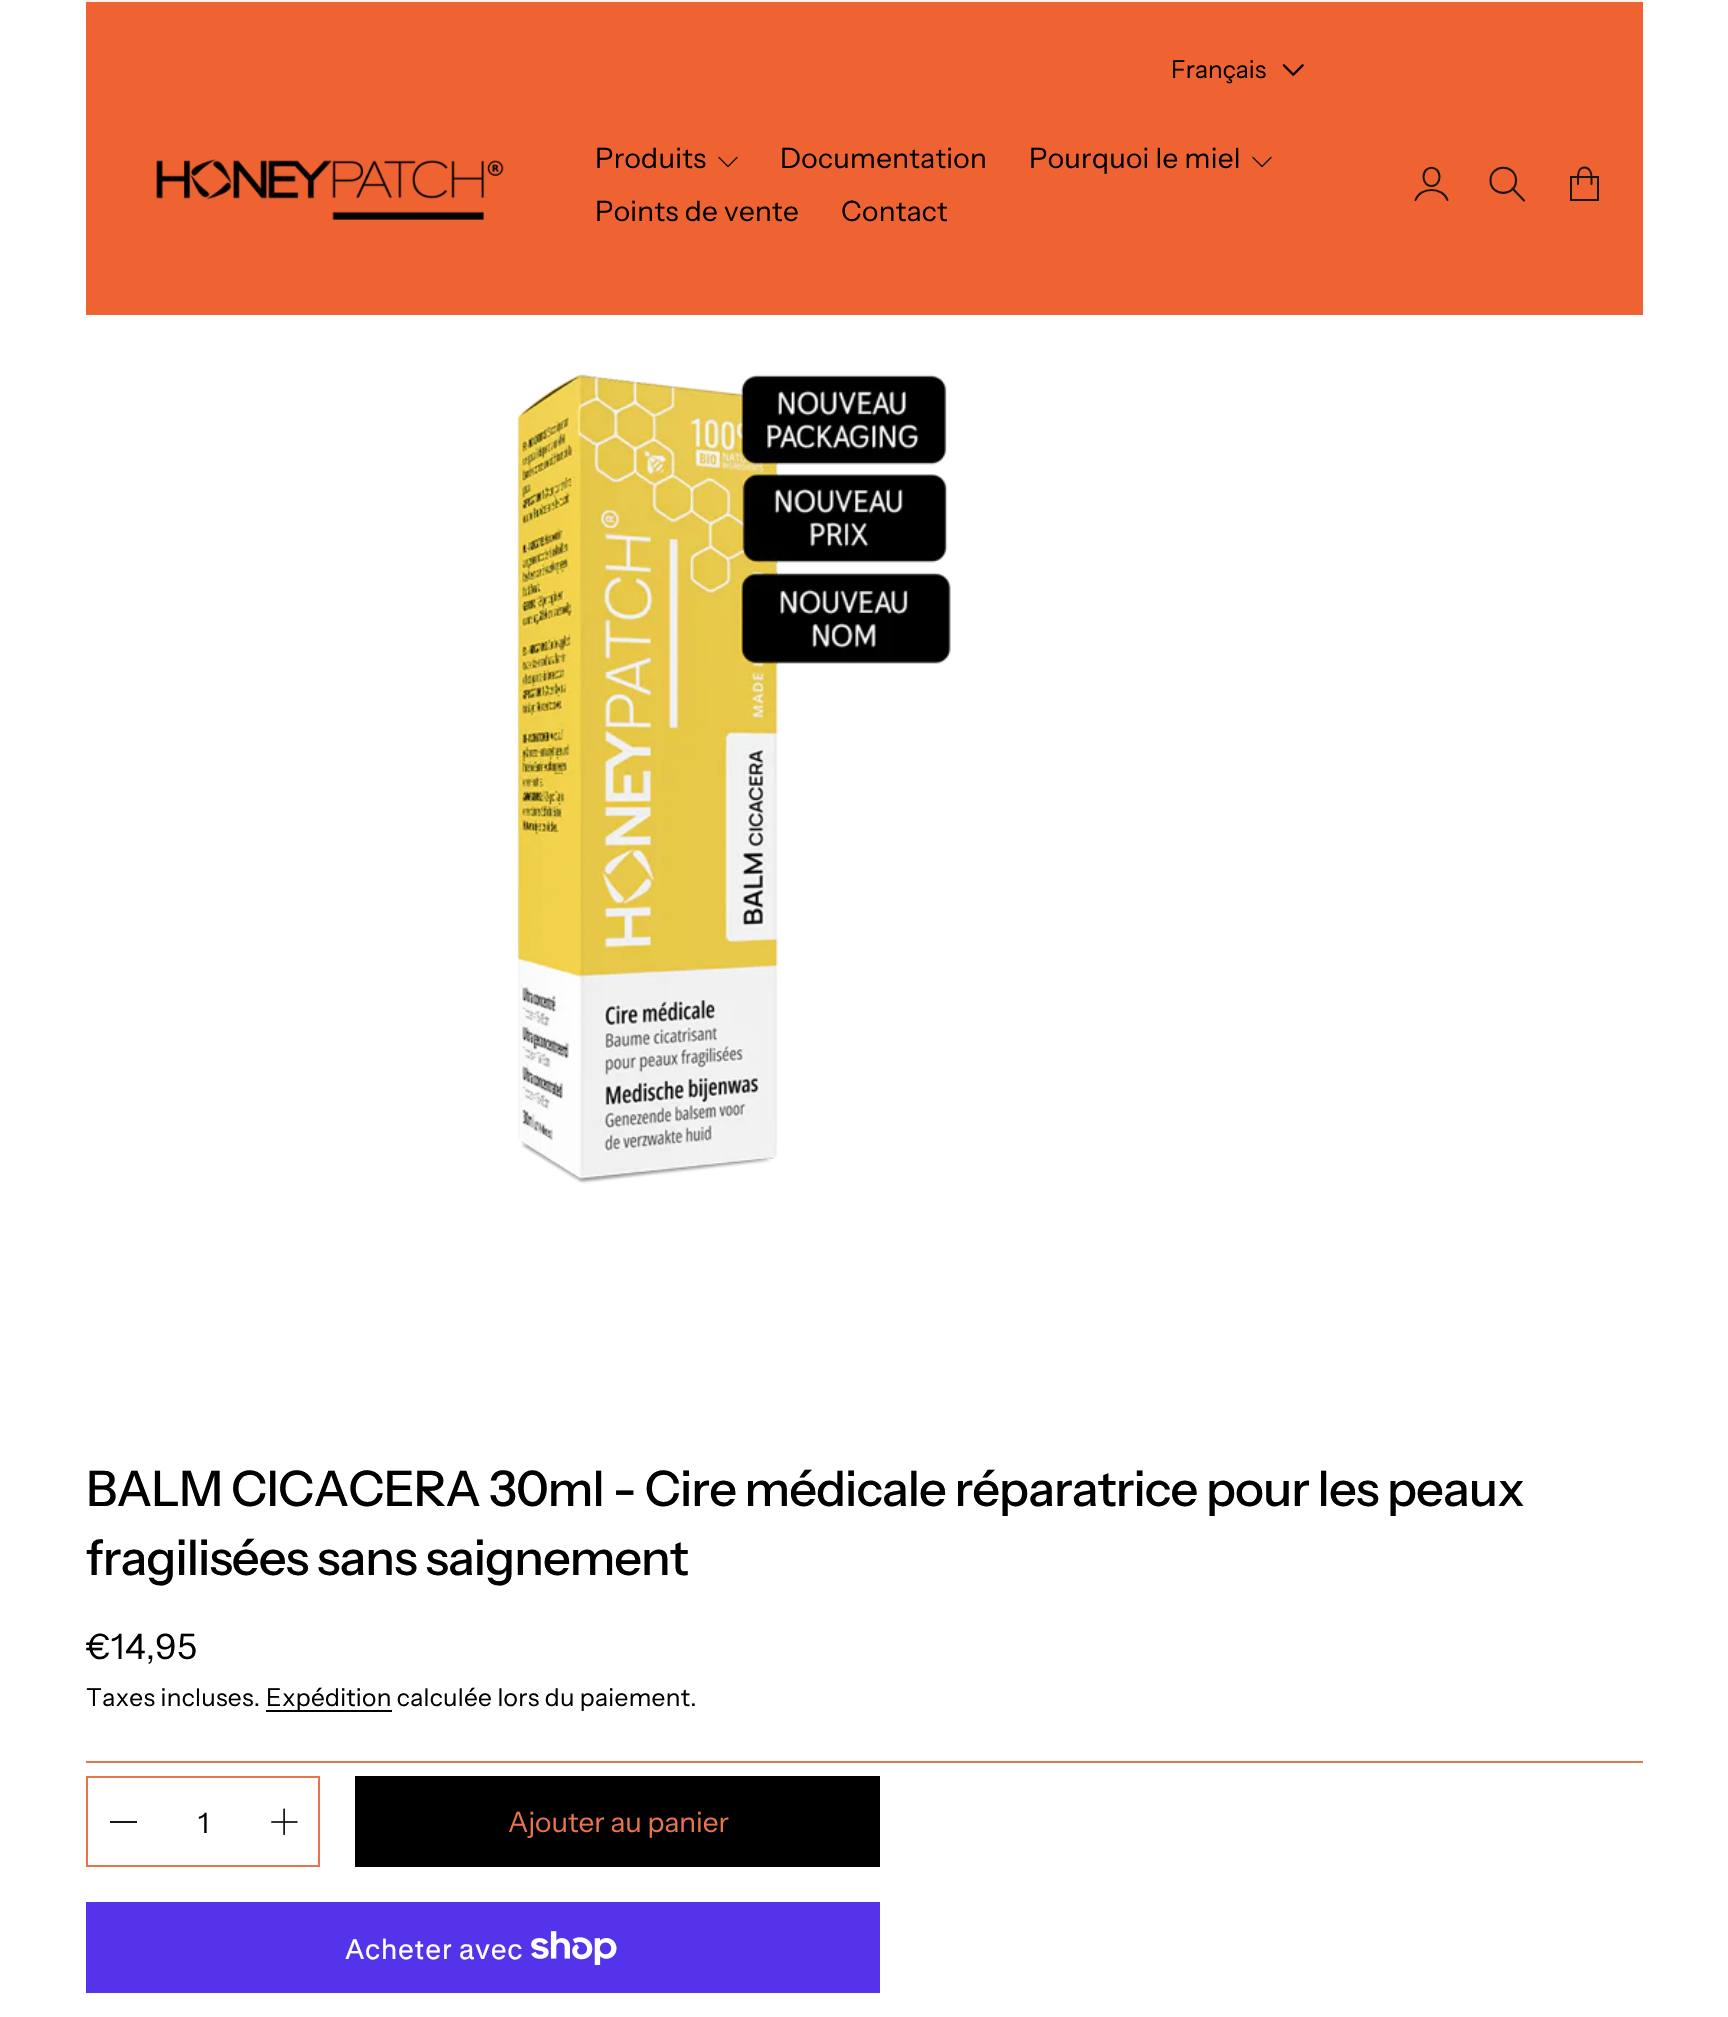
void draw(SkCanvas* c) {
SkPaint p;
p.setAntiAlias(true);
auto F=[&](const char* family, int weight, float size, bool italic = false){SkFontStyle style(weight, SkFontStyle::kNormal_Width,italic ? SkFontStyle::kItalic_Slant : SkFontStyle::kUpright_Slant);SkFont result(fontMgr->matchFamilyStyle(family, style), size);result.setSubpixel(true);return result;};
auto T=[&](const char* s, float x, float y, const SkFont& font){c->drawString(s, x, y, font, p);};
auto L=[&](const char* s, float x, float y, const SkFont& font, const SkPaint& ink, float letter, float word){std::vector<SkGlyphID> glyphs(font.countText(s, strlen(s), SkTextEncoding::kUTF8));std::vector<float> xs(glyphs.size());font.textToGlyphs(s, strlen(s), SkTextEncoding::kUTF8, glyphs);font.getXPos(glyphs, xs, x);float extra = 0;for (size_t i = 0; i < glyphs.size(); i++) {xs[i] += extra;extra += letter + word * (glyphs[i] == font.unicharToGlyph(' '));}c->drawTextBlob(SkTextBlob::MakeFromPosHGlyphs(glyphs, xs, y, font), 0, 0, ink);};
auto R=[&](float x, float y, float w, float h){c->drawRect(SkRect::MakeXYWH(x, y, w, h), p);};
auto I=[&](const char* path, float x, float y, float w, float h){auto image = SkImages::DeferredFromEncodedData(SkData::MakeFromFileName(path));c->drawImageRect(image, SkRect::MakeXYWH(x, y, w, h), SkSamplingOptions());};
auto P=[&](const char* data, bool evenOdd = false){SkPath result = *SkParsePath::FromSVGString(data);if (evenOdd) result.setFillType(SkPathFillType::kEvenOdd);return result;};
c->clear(0xffffffff);
p.setColor(0xffef6231);
R(86,2,1557,313);
p.setColor(0xfff8f5eb);
R(86,0,1557,2);
I("1.png",156,159,348,61);
auto f1 = F("Instrument Sans",400,24.5);
p.setColor(0xff000000);
T("Français",1171,78,f1);
I("2.png",1282,64,22,12);
auto f2 = F("Instrument Sans",400,28);
L("Produits",595,168,f2,p,.3,0);
p.setStroke(true);
p.setStrokeWidth(1.5);
p.setStrokeCap(SkPaint::kRound_Cap);
p.setStrokeJoin(SkPaint::kRound_Join);
p.setColor(0xff171813);
c->drawPath(P("M719 157.5l9 9l9-9"),p);
p.setStroke(false);
p.setColor(0xff000000);
L("Documentation",780,168,f2,p,.3,0);
L("Pourquoi le miel",1029,168,f2,p,.3,0);
p.setStroke(true);
p.setColor(0xff171813);
c->drawPath(P("M1253 157.5l9 9l9-9"),p);
p.setStroke(false);
p.setColor(0xff000000);
L("Points de vente",595,221,f2,p,.3,0);
L("Contact",841,221,f2,p,.3,0);
p.setStroke(true);
p.setStrokeWidth(2);
p.setStrokeCap(SkPaint::kButt_Cap);
p.setStrokeJoin(SkPaint::kMiter_Join);
p.setColor(0xff171813);
c->drawPath(P("M1439.5 177c0 12-16 12-16 0c0-12.5 16-12.5 16 0z"),p);
p.setStrokeCap(SkPaint::kRound_Cap);
c->drawPath(P("M1415.5 200c5-13.5 27-13.5 32 0"),p);
p.setStrokeWidth(2.1);
p.setStrokeCap(SkPaint::kButt_Cap);
c->drawPath(P("M1516 180.5c0 16.5-25.5 16.5-25.5 0c0-17 25.5-17 25.5 0z"),p);
p.setStrokeCap(SkPaint::kRound_Cap);
c->drawPath(P("M1512.5 188.5l11.5 12"),p);
p.setStrokeWidth(2);
p.setStrokeCap(SkPaint::kButt_Cap);
c->drawPath(P("M1571 177h27v23h-27z"),p);
p.setStrokeCap(SkPaint::kRound_Cap);
c->drawPath(P("M1591.5 184v-7.5c0-3-1.5-9-7-9c-5.5 0-6.5 6-6.5 9v7.5"),p);
I("3.png",517,374,434,810);
auto f3 = F("Instrument Sans",500,49);
p.setStroke(false);
p.setColor(0xff000000);
L("BALM CICACERA 30ml - Cire médicale réparatrice pour les peaux",86,1506,f3,p,-.98,0);
L("fragilisées sans saignement",86,1575,f3,p,-.98,0);
auto f4 = F("Instrument Sans",400,35);
L("€14,95",86,1659,f4,p,.3,0);
L("Taxes incluses.",86,1706,f1,p,.3,0);
R(266,1710,126,2);
L("Expédition calculée lors du paiement.",266,1706,f1,p,.3,0);
p.setColor(0xffe9734e);
R(86,1761,1557,2);
p.setStroke(true);
p.setStrokeCap(SkPaint::kButt_Cap);
c->drawRect(SkRect::MakeXYWH(87,1777,232,89),p);
p.setStroke(false);
p.setColor(0xff171813);
R(110,1821,27,2);
p.setColor(0xff000000);
T("1",198,1833,f2);
I("4.png",271,1808,27,27);
p.setStroke(true);
p.setStrokeWidth(4);
c->drawRect(SkRect::MakeXYWH(357,1778,521,87),p);
p.setStroke(false);
R(359,1780,517,83);
p.setColor(0xffe9734e);
T("Ajouter au panier",508,1832,f2);
p.setColor(0xff5433eb);
R(86,1902,794,91);
auto f5 = F("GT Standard",400,28);
p.setColor(0xffffffff);
L("Acheter avec",345,1959,f5,p,.3,0);
I("5.png",531,1931,86,34);
}
